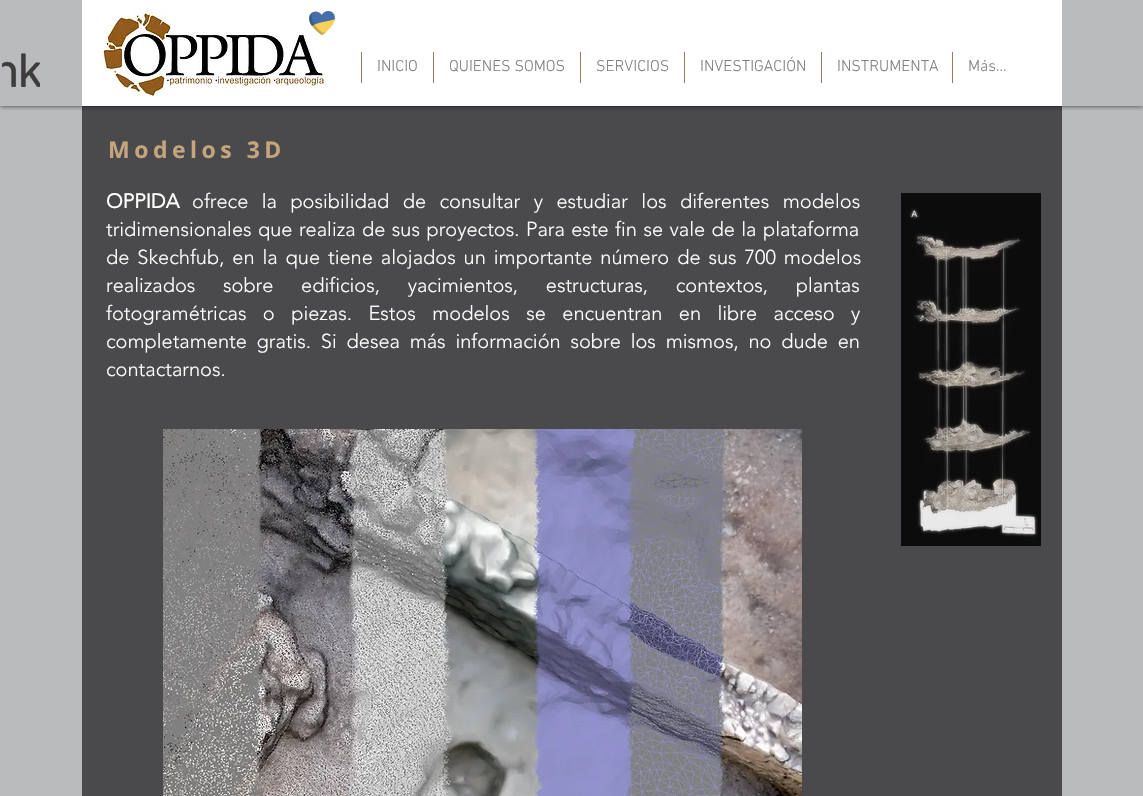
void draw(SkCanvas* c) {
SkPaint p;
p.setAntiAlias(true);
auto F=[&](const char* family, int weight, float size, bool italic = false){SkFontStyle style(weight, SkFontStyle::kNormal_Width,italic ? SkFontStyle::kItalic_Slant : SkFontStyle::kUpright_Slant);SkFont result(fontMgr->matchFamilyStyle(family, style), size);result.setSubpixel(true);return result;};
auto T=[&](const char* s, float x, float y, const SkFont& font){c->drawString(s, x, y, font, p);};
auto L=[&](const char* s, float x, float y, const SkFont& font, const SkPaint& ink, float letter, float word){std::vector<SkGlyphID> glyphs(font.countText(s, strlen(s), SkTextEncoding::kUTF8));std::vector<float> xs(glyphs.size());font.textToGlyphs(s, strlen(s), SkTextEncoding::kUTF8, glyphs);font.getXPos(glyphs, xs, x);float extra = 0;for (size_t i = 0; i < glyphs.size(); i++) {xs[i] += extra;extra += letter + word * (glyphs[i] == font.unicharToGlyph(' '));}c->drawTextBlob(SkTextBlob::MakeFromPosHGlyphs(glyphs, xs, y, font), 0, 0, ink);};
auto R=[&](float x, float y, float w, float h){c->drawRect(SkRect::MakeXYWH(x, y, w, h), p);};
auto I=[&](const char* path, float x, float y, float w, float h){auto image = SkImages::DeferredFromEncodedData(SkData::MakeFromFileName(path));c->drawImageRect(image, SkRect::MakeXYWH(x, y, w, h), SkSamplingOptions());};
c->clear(0xffb9bbbd);
p.setColor(0xff4a4a4c);
R(82,106,980,690);
c->save();
c->clipRect(SkRect::MakeXYWH(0,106,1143,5));
p.setColor(0xb3000000);
p.setMaskFilter(SkMaskFilter::MakeBlur(kNormal_SkBlurStyle, 2.5));
c->drawRect(SkRect::MakeXYWH(0,0,1143,106),p);
p.setMaskFilter(nullptr);
c->restore();
p.setColor(0xffffffff);
R(82,0,980,106);
I("1.png",98,8,232,89);
I("2.png",309,11,26,24);
I("3.png",2,53,38,34);
p.setColor(0xff957b5f);
R(361,52,1,31);
auto f1 = F("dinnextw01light",300,16);
p.setColor(0xff808080);
T("INICIO",377,71,f1);
p.setColor(0xff957b5f);
R(433,52,1,31);
p.setColor(0xff808080);
T("QUIENES SOMOS",449,71,f1);
p.setColor(0xff957b5f);
R(580,52,1,31);
p.setColor(0xff808080);
T("SERVICIOS",596,71,f1);
p.setColor(0xff957b5f);
R(684,52,1,31);
p.setColor(0xff808080);
T("INVESTIGACIÓN",700,71,f1);
p.setColor(0xff957b5f);
R(821,52,1,31);
p.setColor(0xff808080);
T("INSTRUMENTA",837,71,f1);
p.setColor(0xff957b5f);
R(952,52,1,31);
p.setColor(0xff808080);
T("Más...",968,71,f1);
auto f2 = F("Open Sans",700,23);
p.setColor(0xffc6a47e);
L("Modelos 3D",108,158,f2,p,4.5,0);
auto f3 = F("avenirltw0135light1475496",700,20);
p.setColor(0xffffffff);
T("OPPIDA",106,208,f3);
auto f4 = F("avenirltw0135light1475496",300,20);
L("ofrece la posibilidad de consultar y estudiar los diferentes modelos",192,208,f4,p,0,8.25);
L("tridimensionales que realiza de sus proyectos. Para este fin se vale de la plataforma",106,236,f4,p,0,1.25);
L("de Skechfub, en la que tiene alojados un importante número de sus 700 modelos",106,264,f4,p,0,2.75);
L("realizados sobre edificios, yacimientos, estructuras, contextos, plantas",106,292,f4,p,0,22.5);
L("fotogramétricas o piezas. Estos modelos se encuentran en libre acceso y",106,320,f4,p,0,11.25);
L("completamente gratis. Si desea más información sobre los mismos, no dude en",106,348,f4,p,0,4.6);
T("contactarnos.",106,376,f4);
I("4.png",901,193,140,353);
I("5.png",163,429,639,367);
}
